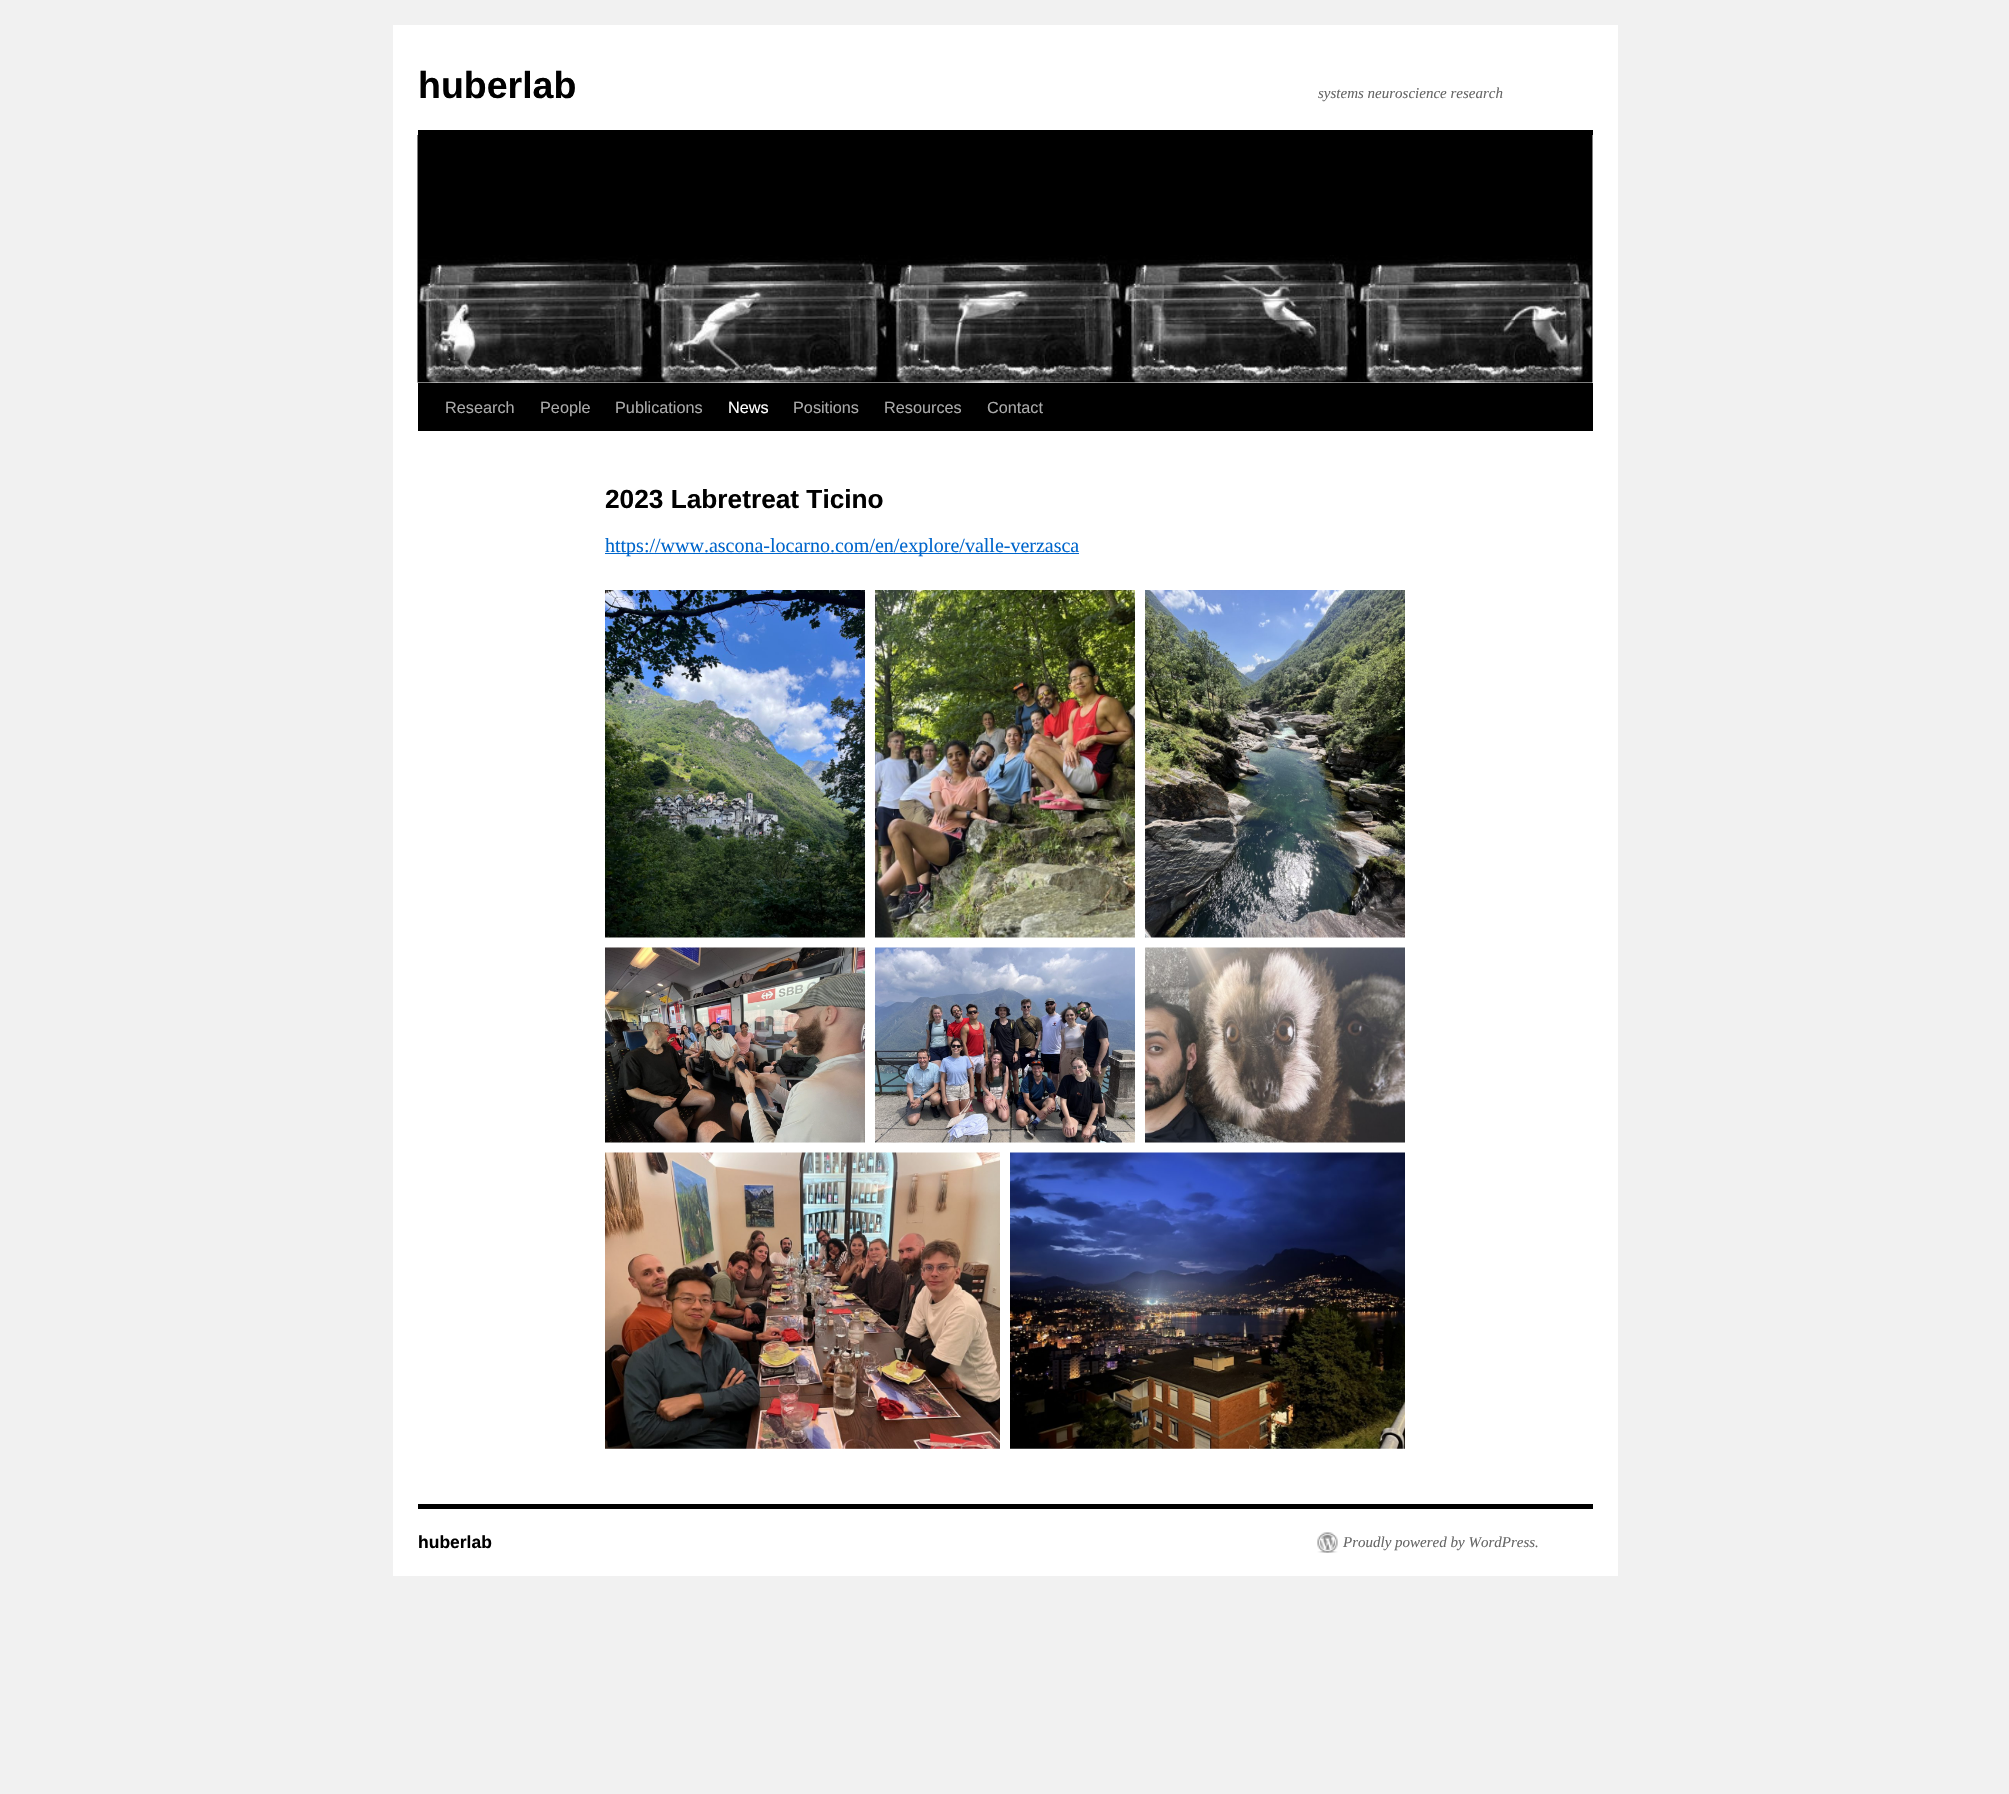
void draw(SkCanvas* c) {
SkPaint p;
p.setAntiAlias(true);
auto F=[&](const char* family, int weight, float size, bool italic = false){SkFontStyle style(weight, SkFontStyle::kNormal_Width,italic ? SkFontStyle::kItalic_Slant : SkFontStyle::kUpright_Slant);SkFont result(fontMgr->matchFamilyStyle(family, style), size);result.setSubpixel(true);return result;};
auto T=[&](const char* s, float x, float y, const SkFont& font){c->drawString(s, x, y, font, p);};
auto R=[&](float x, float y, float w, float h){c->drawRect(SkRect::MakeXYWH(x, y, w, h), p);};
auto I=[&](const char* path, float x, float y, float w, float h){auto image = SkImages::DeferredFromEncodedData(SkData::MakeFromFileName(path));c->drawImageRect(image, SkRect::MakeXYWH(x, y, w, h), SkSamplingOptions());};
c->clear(0xfff1f1f1);
p.setColor(0xffffffff);
R(393,25,1225,1551);
auto f1 = F("Liberation Sans",700,37.5);
p.setColor(0xff000000);
T("huberlab",418,98,f1);
auto f2 = F("Liberation Serif",400,15,true);
p.setColor(0xff666666);
T("systems neuroscience research",1318,98,f2);
p.setColor(0xff000000);
R(418,130,1175,5);
R(418,383,1175,48);
I("1.png",417,135,1176,248);
auto f3 = F("Liberation Sans",400,16.25);
p.setColor(0xffaaaaaa);
T("Research",445,413,f3);
T("People",540,413,f3);
T("Publications",615,413,f3);
p.setColor(0xffffffff);
T("News",728,413,f3);
p.setColor(0xffaaaaaa);
T("Positions",793,413,f3);
T("Resources",884,413,f3);
T("Contact",987,413,f3);
auto f4 = F("Liberation Sans",700,26.25);
p.setColor(0xff000000);
T("2023 Labretreat Ticino",605,508,f4);
p.setColor(0xff0066cc);
R(605,553,474,1);
auto f5 = F("Liberation Serif",400,20);
T("https://www.ascona-locarno.com/en/explore/valle-verzasca",605,552,f5);
I("2.png",605,590,260,348);
I("3.png",875,590,260,348);
I("4.png",1145,590,260,348);
I("5.png",605,947,260,196);
I("6.png",875,947,260,196);
I("7.png",1145,947,260,196);
I("8.png",605,1152,395,297);
I("9.png",1010,1152,395,297);
p.setColor(0xff000000);
R(418,1504,1175,5);
auto f6 = F("Liberation Sans",700,17.5);
T("huberlab",418,1548,f6);
I("10.png",1317,1532,21,21);
p.setColor(0xff666666);
T("Proudly powered by WordPress.",1343,1547,f2);
}
